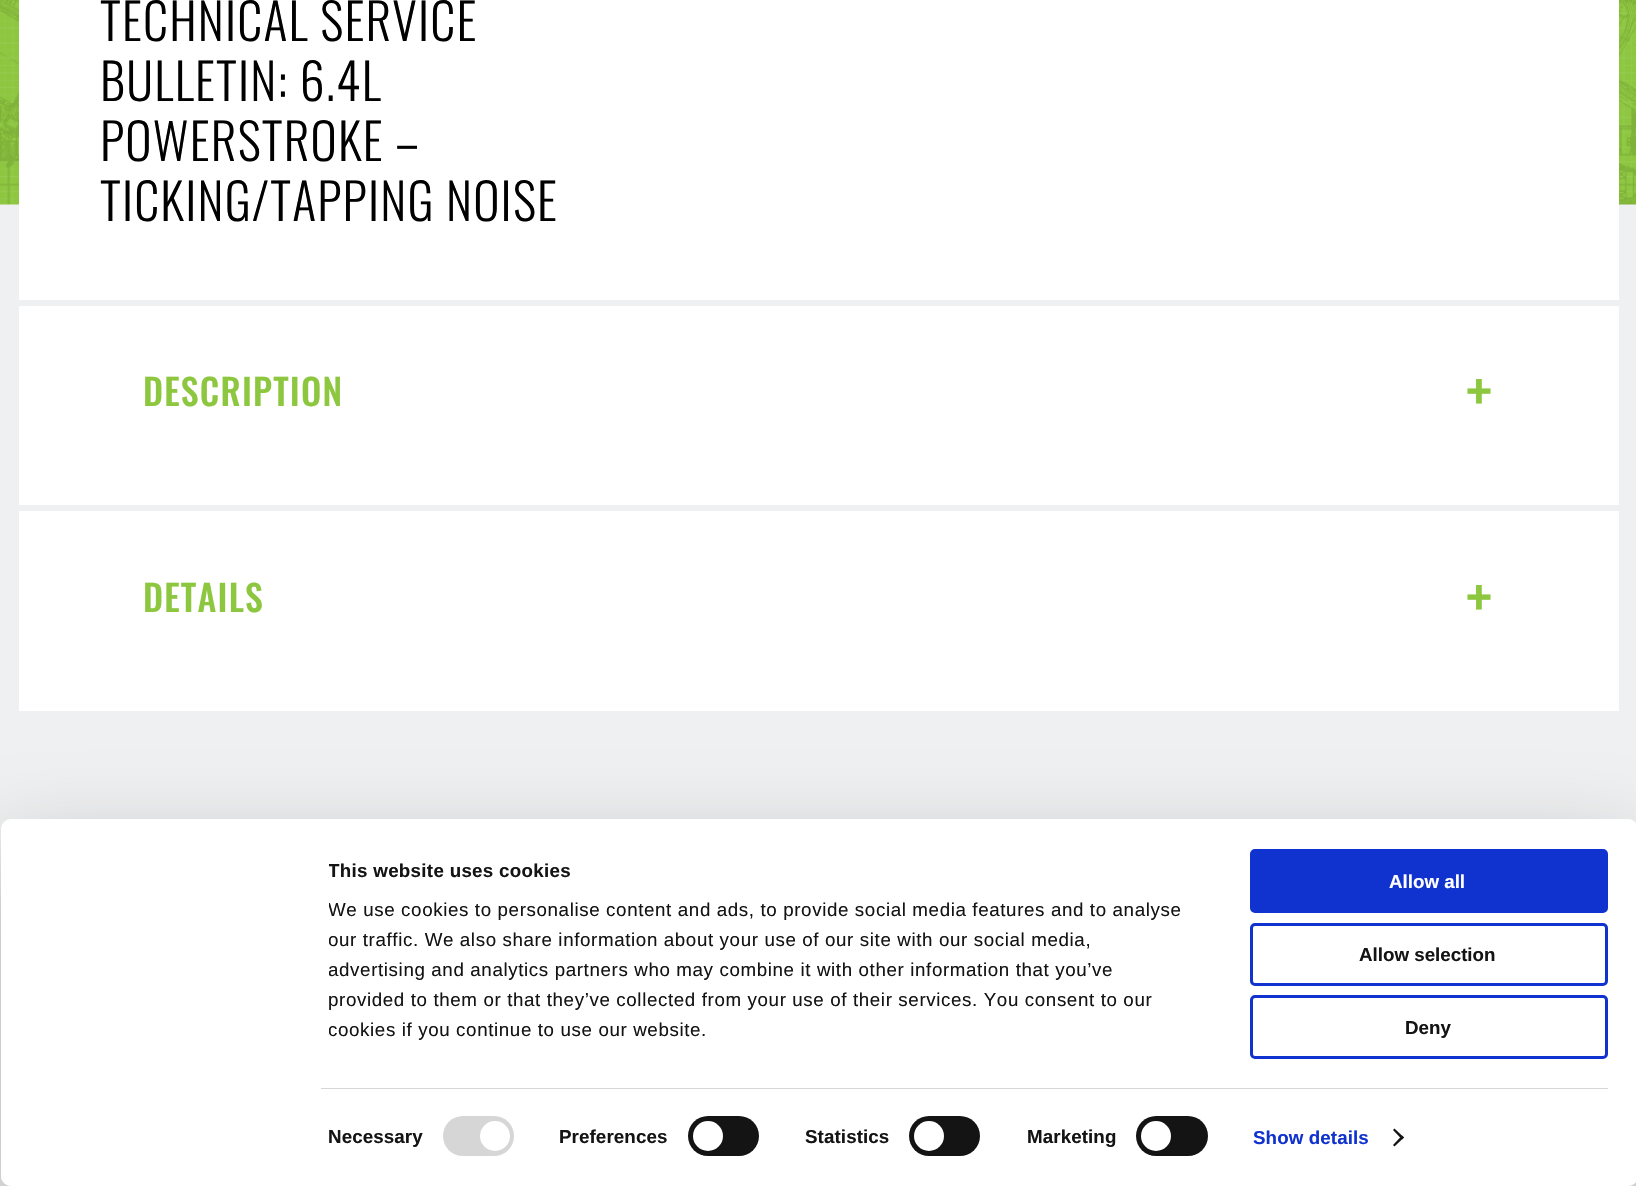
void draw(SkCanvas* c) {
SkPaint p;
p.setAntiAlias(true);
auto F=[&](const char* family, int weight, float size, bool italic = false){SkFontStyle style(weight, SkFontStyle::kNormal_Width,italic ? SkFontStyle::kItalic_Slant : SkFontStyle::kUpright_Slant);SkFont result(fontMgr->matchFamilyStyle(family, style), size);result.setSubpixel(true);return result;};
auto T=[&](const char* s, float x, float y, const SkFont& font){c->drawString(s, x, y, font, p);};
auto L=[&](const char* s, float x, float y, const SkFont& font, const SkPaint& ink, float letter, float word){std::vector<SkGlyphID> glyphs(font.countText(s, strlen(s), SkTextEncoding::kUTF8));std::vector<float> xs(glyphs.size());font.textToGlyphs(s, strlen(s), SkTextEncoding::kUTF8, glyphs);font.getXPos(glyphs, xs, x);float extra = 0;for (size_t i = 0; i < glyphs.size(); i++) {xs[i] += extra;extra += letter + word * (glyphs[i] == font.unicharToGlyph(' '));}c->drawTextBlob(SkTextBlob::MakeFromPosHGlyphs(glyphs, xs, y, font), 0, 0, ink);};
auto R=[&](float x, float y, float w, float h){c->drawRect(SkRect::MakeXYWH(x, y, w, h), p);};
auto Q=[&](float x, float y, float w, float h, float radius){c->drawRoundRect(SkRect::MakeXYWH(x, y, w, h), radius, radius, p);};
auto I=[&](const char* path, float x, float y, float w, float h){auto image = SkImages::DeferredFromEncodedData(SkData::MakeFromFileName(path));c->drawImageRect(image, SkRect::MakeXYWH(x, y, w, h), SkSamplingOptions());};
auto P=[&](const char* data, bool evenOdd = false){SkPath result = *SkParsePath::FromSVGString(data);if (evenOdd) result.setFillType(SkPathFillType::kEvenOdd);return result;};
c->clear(0xffeff0f1);
I("1.png",0,0,1636,205);
p.setColor(0xffffffff);
R(19,0,1600,300);
auto f1 = F("Oswald",300,50);
p.setColor(0xff000000);
L("TECHNICAL SERVICE",100,41,f1,p,1.2,0);
L("BULLETIN: 6.4L",100,101,f1,p,1.2,0);
L("POWERSTROKE –",100,161,f1,p,1.2,0);
L("TICKING/TAPPING NOISE",100,221,f1,p,1.2,0);
p.setColor(0xffffffff);
R(19,306,1600,199);
auto f2 = F("Oswald",500,36);
p.setColor(0xff8dc63f);
L("DESCRIPTION",143,406,f2,p,1.2,0);
auto f3 = F("Oswald",500,60);
L("+",1466,416,f3,p,1.2,0);
p.setColor(0xffffffff);
R(19,511,1600,200);
p.setColor(0xff8dc63f);
L("DETAILS",143,612,f2,p,1.2,0);
L("+",1466,622,f3,p,1.2,0);
c->save();
c->clipPath(P("M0 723h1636v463h-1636zm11 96h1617c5.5 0 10 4.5 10 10v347c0 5.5-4.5 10-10 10h-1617c-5.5 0-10-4.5-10-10v-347c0-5.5 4.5-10 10-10z",true),true);
p.setColor(0x4d000000);
p.setMaskFilter(SkMaskFilter::MakeBlur(kNormal_SkBlurStyle, 44));
c->drawRoundRect(SkRect::MakeXYWH(1,856,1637,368),10,10,p);
p.setMaskFilter(nullptr);
c->restore();
p.setColor(0xffffffff);
Q(1,819,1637,367,10);
c->save();
c->clipRect(SkRect::MakeXYWH(329,856,885,195));
auto f4 = F("Liberation Sans",700,18.75);
p.setColor(0xff141414);
L("This website uses cookies",328,877,f4,p,.3,0);
auto f5 = F("Liberation Sans",400,18.75);
L("We use cookies to personalise content and ads, to provide social media features and to analyse",328,916,f5,p,.62,0);
L("our traffic. We also share information about your use of our site with our social media,",328,946,f5,p,.62,0);
L("advertising and analytics partners who may combine it with other information that you’ve",328,976,f5,p,.62,0);
L("provided to them or that they’ve collected from your use of their services. You consent to our",328,1006,f5,p,.62,0);
L("cookies if you continue to use our website.",328,1036,f5,p,.62,0);
c->restore();
p.setColor(0xffd6d6d6);
R(321,1088,1287,1);
p.setColor(0xff141414);
L("Necessary",328,1143,f4,p,.1,0);
p.setColor(0xffd6d6d6);
Q(443,1116,71,40,20);
p.setColor(0xffffffff);
c->drawCircle(495,1136,15,p);
p.setColor(0xff141414);
L("Preferences",559,1143,f4,p,.1,0);
Q(688,1116,71,40,20);
p.setColor(0xffffffff);
c->drawCircle(708,1136,15,p);
p.setColor(0xff141414);
L("Statistics",805,1143,f4,p,.1,0);
Q(909,1116,71,40,20);
p.setColor(0xffffffff);
c->drawCircle(929,1136,15,p);
p.setColor(0xff141414);
L("Marketing",1027,1143,f4,p,.1,0);
Q(1136,1116,72,40,20);
p.setColor(0xffffffff);
c->drawCircle(1156,1136,15,p);
p.setColor(0xff1032cf);
L("Show details",1253,1144,f4,p,.1,0);
p.setColor(0xff141414);
c->drawPath(P("M1394.5 1128.5l9.5 9l-2 2l-9-9.5z"),p);
c->drawPath(P("M1402 1135.5l2 2l-9.5 9l-1.5-1.5z"),p);
p.setColor(0xff1032cf);
c->drawRoundRect(SkRect::MakeXYWH(1251.5,850.5,355,61),3.5,3.5,p);
p.setStroke(true);
p.setStrokeWidth(3);
c->drawRoundRect(SkRect::MakeXYWH(1251.5,850.5,355,61),3.5,3.5,p);
p.setStroke(false);
p.setColor(0xffffffff);
T("Allow all",1389,888,f4);
p.setStroke(true);
p.setColor(0xff1032cf);
c->drawRoundRect(SkRect::MakeXYWH(1251.5,924.5,355,60),3.5,3.5,p);
p.setStroke(false);
p.setColor(0xff141414);
T("Allow selection",1359,961,f4);
p.setStroke(true);
p.setColor(0xff1032cf);
c->drawRoundRect(SkRect::MakeXYWH(1251.5,996.5,355,61),3.5,3.5,p);
p.setStroke(false);
p.setColor(0xff141414);
T("Deny",1405,1034,f4);
}
